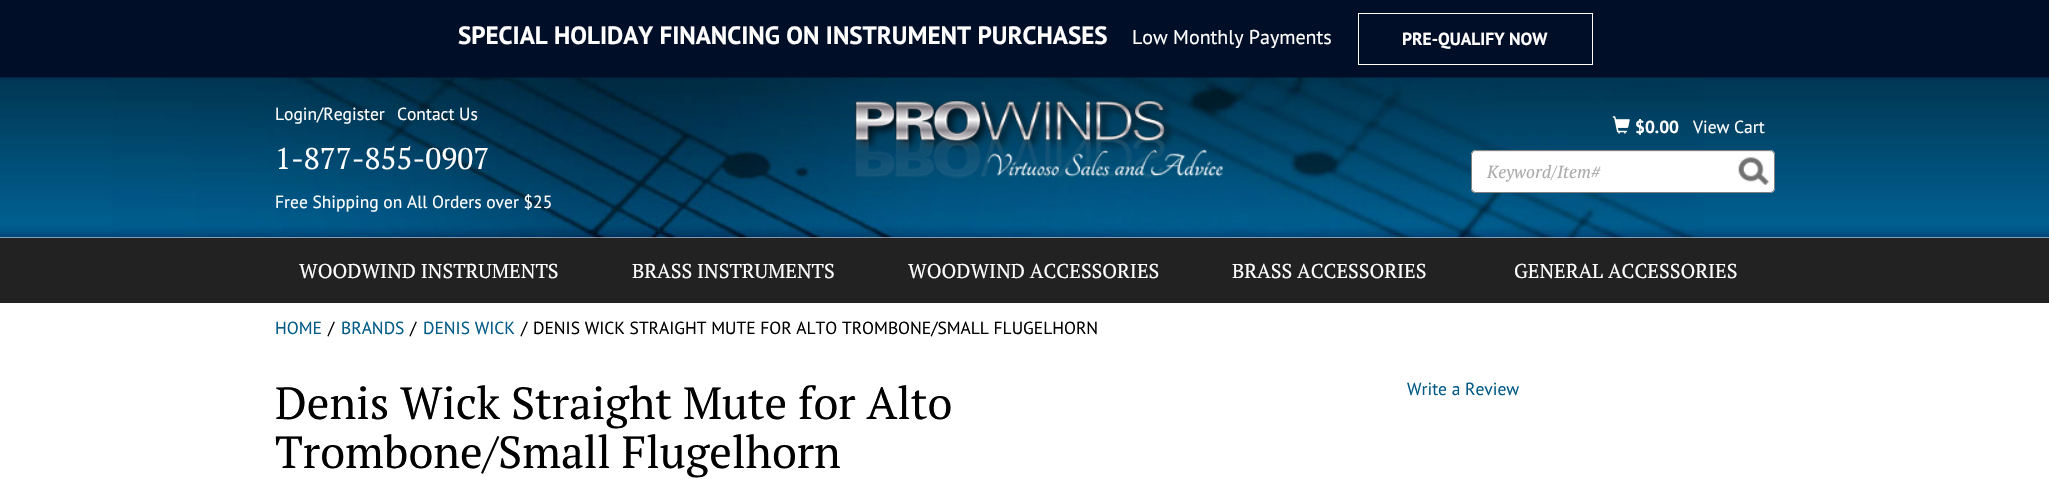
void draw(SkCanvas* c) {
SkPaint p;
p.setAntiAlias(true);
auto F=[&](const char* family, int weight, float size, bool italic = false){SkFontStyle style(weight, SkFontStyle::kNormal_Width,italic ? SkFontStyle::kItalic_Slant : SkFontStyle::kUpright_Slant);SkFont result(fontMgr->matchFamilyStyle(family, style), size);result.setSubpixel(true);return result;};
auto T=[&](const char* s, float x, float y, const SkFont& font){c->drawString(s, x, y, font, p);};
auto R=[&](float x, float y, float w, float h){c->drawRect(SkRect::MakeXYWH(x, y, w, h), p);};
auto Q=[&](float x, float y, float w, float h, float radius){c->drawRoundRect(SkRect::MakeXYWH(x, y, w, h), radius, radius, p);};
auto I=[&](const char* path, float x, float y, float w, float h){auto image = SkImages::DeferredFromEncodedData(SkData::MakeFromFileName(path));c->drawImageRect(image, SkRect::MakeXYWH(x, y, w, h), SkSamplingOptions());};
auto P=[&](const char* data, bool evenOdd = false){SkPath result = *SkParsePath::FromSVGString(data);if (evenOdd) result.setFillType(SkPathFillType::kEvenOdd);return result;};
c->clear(0xffffffff);
p.setColor(0xff000e28);
R(0,0,2049,78);
auto f1 = F("PT Sans",700,25);
p.setColor(0xffffffff);
T("SPECIAL HOLIDAY FINANCING ON INSTRUMENT PURCHASES",458,44,f1);
auto f2 = F("PT Sans",400,20);
T("Low Monthly Payments",1132,44,f2);
p.setStroke(true);
p.setStrokeWidth(1);
c->drawRect(SkRect::MakeXYWH(1358.5,13.5,234,51),p);
auto f3 = F("PT Sans",700,17.5);
p.setStroke(false);
T("PRE-QUALIFY NOW",1402,45,f3);
I("1.png",0,77,2049,161);
auto f4 = F("PT Sans",400,17.5);
T("Login/Register",275,120,f4);
T("Contact Us",397,120,f4);
auto f5 = F("PT Serif",400,30);
T("1-877-855-0907",275,169,f5);
T("Free Shipping on All Orders over $25",275,208,f4);
I("2.png",854,100,369,79);
I("3.png",1612,116,18,18);
T("$0.00",1635,133,f3);
T("View Cart",1693,133,f4);
Q(1471,150,304,43,5);
p.setColor(0xffececec);
c->drawPath(P("M1476 152h294c2 0 4 2 4 4v-1c0-2-2-4-4-4h-293c-1 0-3 1-3 2z"),p);
p.setStroke(true);
p.setColor(0xff818181);
c->drawRoundRect(SkRect::MakeXYWH(1471.5,150.5,303,42),4.5,4.5,p);
auto f6 = F("PT Serif",400,17.5,true);
p.setStroke(false);
p.setColor(0xffababab);
T("Keyword/Item#",1487,178,f6);
I("4.png",1738,157,31,28);
p.setColor(0xff222222);
R(0,238,2049,65);
auto f7 = F("PT Serif",400,20);
p.setColor(0xffffffff);
T("WOODWIND INSTRUMENTS",299,278,f7);
T("BRASS INSTRUMENTS",632,278,f7);
T("WOODWIND ACCESSORIES",908,278,f7);
T("BRASS ACCESSORIES",1232,278,f7);
T("GENERAL ACCESSORIES",1514,278,f7);
p.setColor(0xff025a86);
T("HOME",275,334,f4);
p.setColor(0xff000000);
T("/",328,334,f4);
p.setColor(0xff025a86);
T("BRANDS",341,334,f4);
p.setColor(0xff000000);
T("/",410,334,f4);
p.setColor(0xff025a86);
T("DENIS WICK",423,334,f4);
p.setColor(0xff000000);
T("/",521,334,f4);
T("DENIS WICK STRAIGHT MUTE FOR ALTO TROMBONE/SMALL FLUGELHORN",533,334,f4);
auto f8 = F("PT Serif",400,45);
T("Denis Wick Straight Mute for Alto",275,419,f8);
T("Trombone/Small Flugelhorn",275,468,f8);
p.setColor(0xff025a86);
T("Write a Review",1407,395,f4);
}
